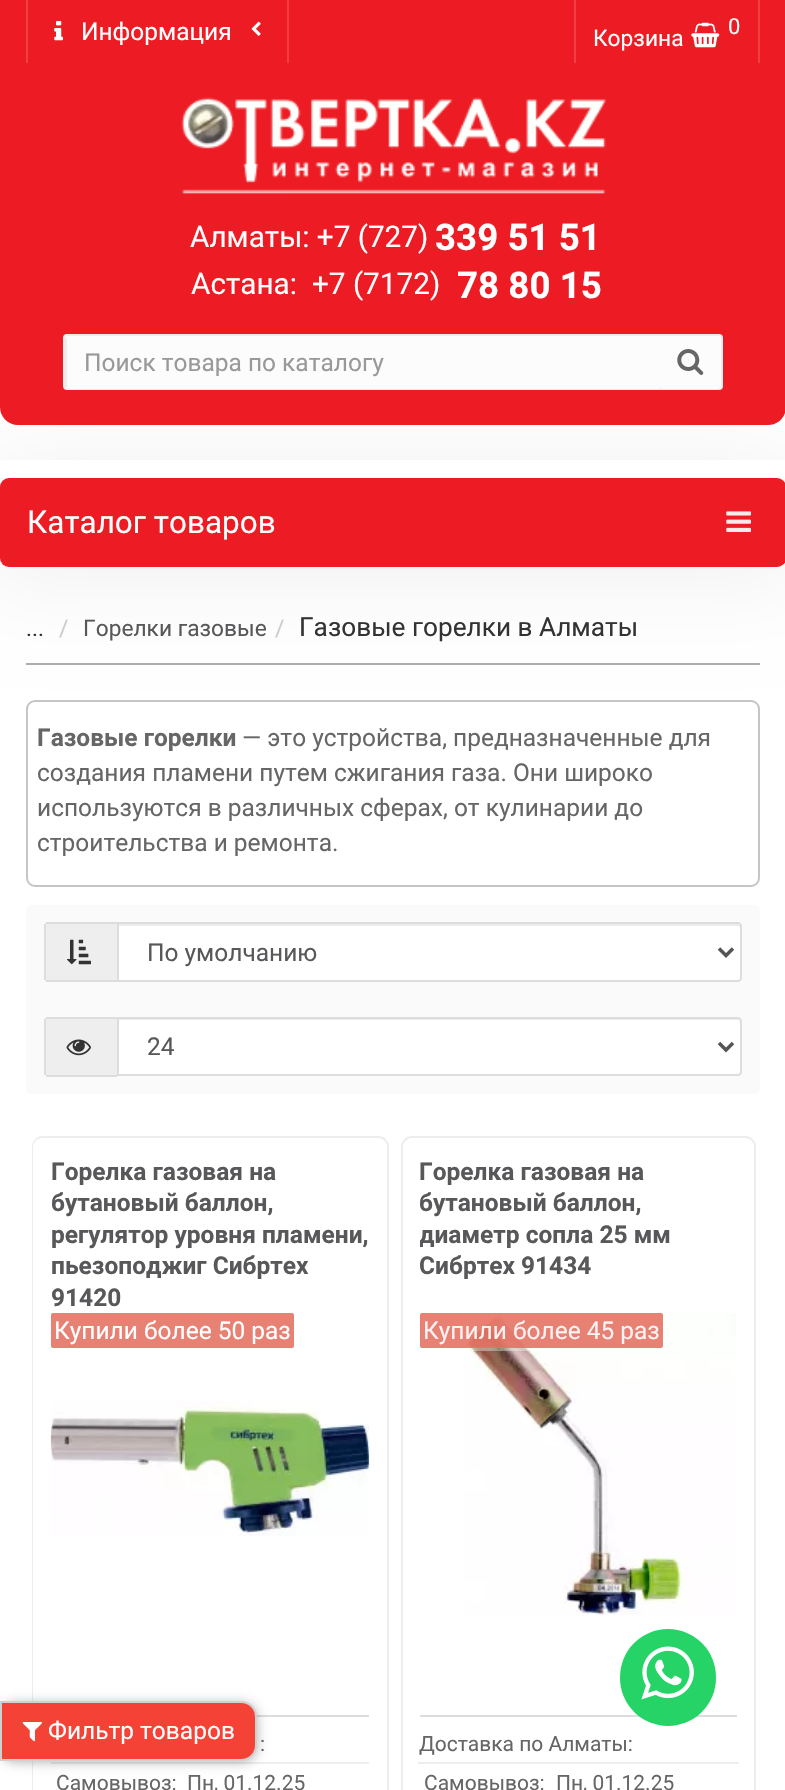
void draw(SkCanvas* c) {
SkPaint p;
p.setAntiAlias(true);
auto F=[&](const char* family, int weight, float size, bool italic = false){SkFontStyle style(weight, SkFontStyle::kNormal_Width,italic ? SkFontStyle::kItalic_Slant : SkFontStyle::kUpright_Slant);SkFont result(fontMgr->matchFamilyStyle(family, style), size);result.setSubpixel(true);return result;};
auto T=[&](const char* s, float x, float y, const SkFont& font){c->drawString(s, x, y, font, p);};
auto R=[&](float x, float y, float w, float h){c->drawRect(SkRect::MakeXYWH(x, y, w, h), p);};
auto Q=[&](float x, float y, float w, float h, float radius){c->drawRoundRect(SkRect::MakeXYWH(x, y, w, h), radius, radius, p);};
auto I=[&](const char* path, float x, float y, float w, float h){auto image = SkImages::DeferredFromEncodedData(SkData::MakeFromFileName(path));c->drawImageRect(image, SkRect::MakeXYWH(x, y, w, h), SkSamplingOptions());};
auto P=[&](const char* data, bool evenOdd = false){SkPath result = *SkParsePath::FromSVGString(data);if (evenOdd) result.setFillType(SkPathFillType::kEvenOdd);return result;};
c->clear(0xffffffff);
p.setColor(0xffed1c24);
R(0,0,785,70);
p.setColor(0xfff03e45);
R(287,0,2,63);
R(26,0,2,63);
I("1.png",54,21,9,20);
auto f1 = F("Roboto",400,24.5);
p.setColor(0xffffffff);
T("Информация",81,40,f1);
I("2.png",251,21,10,15);
p.setColor(0xfff03e45);
R(758,0,2,63);
R(574,0,2,63);
I("3.png",691,22,29,26);
auto f2 = F("Roboto",400,22);
p.setColor(0xffffffff);
T("0",728,34,f2);
auto f3 = F("Roboto",400,22.75);
T("Корзина",593,46,f3);
p.setColor(0x0d000000);
p.setMaskFilter(SkMaskFilter::MakeBlur(kNormal_SkBlurStyle, 44));
c->drawRoundRect(SkRect::MakeXYWH(-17,460,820,125),28,28,p);
p.setMaskFilter(nullptr);
p.setColor(0xffed1c24);
c->drawPath(P("M0 70h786v337c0 10-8 18-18 18h-750c-10 0-18-8-18-18z"),p);
I("4.png",181,97,425,97);
auto f4 = F("Roboto",400,29.75);
p.setColor(0xffffffff);
T("Алматы: +7 (727)",190,247,f4);
auto f5 = F("Roboto",700,36.75);
T("339 51 51",435,250,f5);
T("Астана:",191,294,f4);
T("+7 (7172)",312,294,f4);
T("78 80 15",457,298,f5);
p.setColor(0xfffcfcfc);
c->drawRoundRect(SkRect::MakeXYWH(64,335,658,54),3,3,p);
p.setStroke(true);
p.setStrokeWidth(2);
p.setColor(0xffededed);
c->drawRoundRect(SkRect::MakeXYWH(64,335,658,54),3,3,p);
p.setStroke(false);
p.setColor(0xfffcfcfc);
c->drawPath(P("M69 336h591v53h-591c-2 0-4-2-4-4v-45c0-2 2-4 4-4z"),p);
p.setColor(0xffededed);
R(65,338,2,49);
p.setColor(0xff999999);
T("Поиск товара по каталогу",84,371,f1);
p.setColor(0xfffcfcfc);
Q(660,336,61,53,4);
I("5.png",677,349,27,26);
p.setColor(0xffffffff);
R(0,460,785,18);
p.setColor(0xffed1c24);
Q(0,478,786,89,9);
auto f6 = F("Roboto",400,31.5);
p.setColor(0xffffffff);
T("Каталог товаров",27,533,f6);
I("6.png",726,511,25,21);
p.setColor(0xffadadad);
R(26,663,734,2);
p.setColor(0xff333333);
T("...",26,636,f3);
p.setColor(0xffcccccc);
T("/",59,636,f3);
p.setColor(0xff58585a);
T("Горелки газовые",83,636,f3);
p.setColor(0xffcccccc);
T("/",275,636,f3);
auto f7 = F("Roboto",400,26.25);
p.setColor(0xff333333);
T("Газовые горелки в Алматы",299,636,f7);
p.setStroke(true);
p.setColor(0xffc5c5c5);
c->drawRoundRect(SkRect::MakeXYWH(27,701,732,185),8,8,p);
auto f8 = F("Roboto",700,24.5);
p.setStroke(false);
p.setColor(0xff666666);
T("Газовые горелки",37,746,f8);
T("— это устройства, предназначенные для",242,746,f1);
T("создания пламени путем сжигания газа. Они широко",37,781,f1);
T("используются в различных сферах, от кулинарии до",37,816,f1);
T("строительства и ремонта.",37,851,f1);
p.setColor(0xfffafafa);
Q(26,905,734,189,5);
p.setColor(0xffeeeeee);
c->drawPath(P("M48 922h69v60h-69c-2 0-4-2-4-4v-52c0-2 2-4 4-4z"),p);
p.setColor(0xffdddddd);
R(46,922,71,2);
R(46,980,71,2);
R(44,924,2,56);
I("7.png",67,939,24,26);
p.setColor(0xffffffff);
c->drawPath(P("M117 922h621c2 0 4 2 4 4v52c0 2-2 4-4 4h-621z"),p);
p.setColor(0xffececec);
c->drawPath(P("M119 926h619c1 0 2 1 2 2v-3l-2-1h-619z"),p);
p.setStroke(true);
p.setColor(0xffdddddd);
c->drawPath(P("M118 923h620c1.5 0 3 1.5 3 3v52c0 1.5-1.5 3-3 3h-620z"),p);
p.setStrokeWidth(3.5);
p.setColor(0xff555555);
c->drawPath(P("M719 948.5l7 7l7-7"),p);
p.setStroke(false);
p.setColor(0xff58585a);
T("По умолчанию",147,961,f1);
p.setColor(0xffeeeeee);
c->drawPath(P("M48 1017h69v59h-69c-2 0-4-2-4-4v-51c0-2 2-4 4-4z"),p);
p.setColor(0xffdddddd);
R(46,1017,71,2);
R(46,1075,71,2);
R(44,1019,2,56);
I("8.png",66,1039,25,17);
p.setColor(0xffffffff);
c->drawPath(P("M117 1017h621c2 0 4 2 4 4v51c0 2-2 4-4 4h-621z"),p);
p.setColor(0xffececec);
c->drawPath(P("M119 1020h619c1 0 2 1 2 2c0-1 0-3-2-3h-619z"),p);
p.setStroke(true);
p.setStrokeWidth(2);
p.setColor(0xffdddddd);
c->drawPath(P("M118 1018h620c1.5 0 3 1.5 3 3v51c0 1.5-1.5 3-3 3h-620z"),p);
p.setStrokeWidth(3.5);
p.setColor(0xff555555);
c->drawPath(P("M719 1043l7 7l7-7"),p);
p.setStroke(false);
p.setColor(0xff58585a);
T("24",147,1055,f1);
p.setStroke(true);
p.setStrokeWidth(2);
p.setColor(0xffededed);
c->drawRoundRect(SkRect::MakeXYWH(33,1137,355,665),10,10,p);
p.setStroke(false);
p.setColor(0xffffffff);
Q(33,1138,354,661,9);
p.setColor(0xff58585a);
T("Горелка газовая на",51,1180,f8);
T("бутановый баллон,",51,1211,f8);
T("регулятор уровня пламени,",51,1243,f8);
T("пьезоподжиг Сибртех",51,1274,f8);
T("91420",51,1306,f8);
p.setColor(0xffe78174);
Q(51,1313,243,35,2);
p.setColor(0xffffffff);
T("Купили более 50 раз",54,1339,f1);
I("9.png",50,1401,320,135);
p.setColor(0xffdddddd);
R(256,1715,113,2);
auto f9 = F("Roboto",400,21);
p.setColor(0xff666666);
T(":",260,1751,f9);
T("Самовывоз:",56,1790,f9);
p.setColor(0xffeeeeee);
R(51,1762,318,2);
p.setColor(0xff666666);
T("Пн, 01.12.25",187,1790,f9);
p.setStroke(true);
p.setColor(0xffededed);
c->drawRoundRect(SkRect::MakeXYWH(402,1137,353,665),10,10,p);
p.setStroke(false);
p.setColor(0xffffffff);
Q(403,1138,351,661,9);
p.setColor(0xff58585a);
T("Горелка газовая на",419,1180,f8);
T("бутановый баллон,",419,1211,f8);
c->save();
c->clipRect(SkRect::MakeXYWH(420,1155,317,158));
T("диаметр сопла 25 мм",419,1243,f8);
c->restore();
T("Сибртех 91434",419,1274,f8);
I("10.png",464,1312,272,303);
p.setStroke(true);
p.setStrokeWidth(4);
p.setColor(0x5cffffff);
c->drawRoundRect(SkRect::MakeXYWH(419,1311,246,38),3,3,p);
p.setStroke(false);
p.setColor(0xe6e47364);
Q(420,1313,243,35,2);
p.setColor(0xfffcf2f1);
T("Купили более 45 раз",423,1339,f1);
p.setColor(0xffdddddd);
R(420,1715,317,2);
p.setColor(0xff666666);
T("Доставка по Алматы:",419,1751,f9);
T("Самовывоз:",424,1790,f9);
p.setColor(0xffeeeeee);
R(418,1762,321,2);
p.setColor(0xff666666);
T("Пн, 01.12.25",556,1790,f9);
p.setColor(0xff25d366);
Q(620,1629,96,97,48);
I("11.png",641,1646,53,54);
p.setColor(0x4d000000);
p.setMaskFilter(SkMaskFilter::MakeBlur(kNormal_SkBlurStyle, 6));
c->drawRoundRect(SkRect::MakeXYWH(0,1703,257,59),16,16,p);
p.setMaskFilter(nullptr);
p.setColor(0xfff44336);
c->drawPath(P("M1 1702h240c8.5 0 15 6.5 15 15v28c0 8.5-6.5 15-15 15h-240z"),p);
p.setStroke(true);
p.setStrokeWidth(2);
p.setColor(0xffd0d0d0);
c->drawPath(P("M1 1702h240c8.5 0 15 6.5 15 15v28c0 8.5-6.5 15-15 15h-240z"),p);
I("12.png",22,1722,20,20);
p.setStroke(false);
p.setColor(0xffffffff);
T("Фильтр товаров",48,1739,f1);
}
